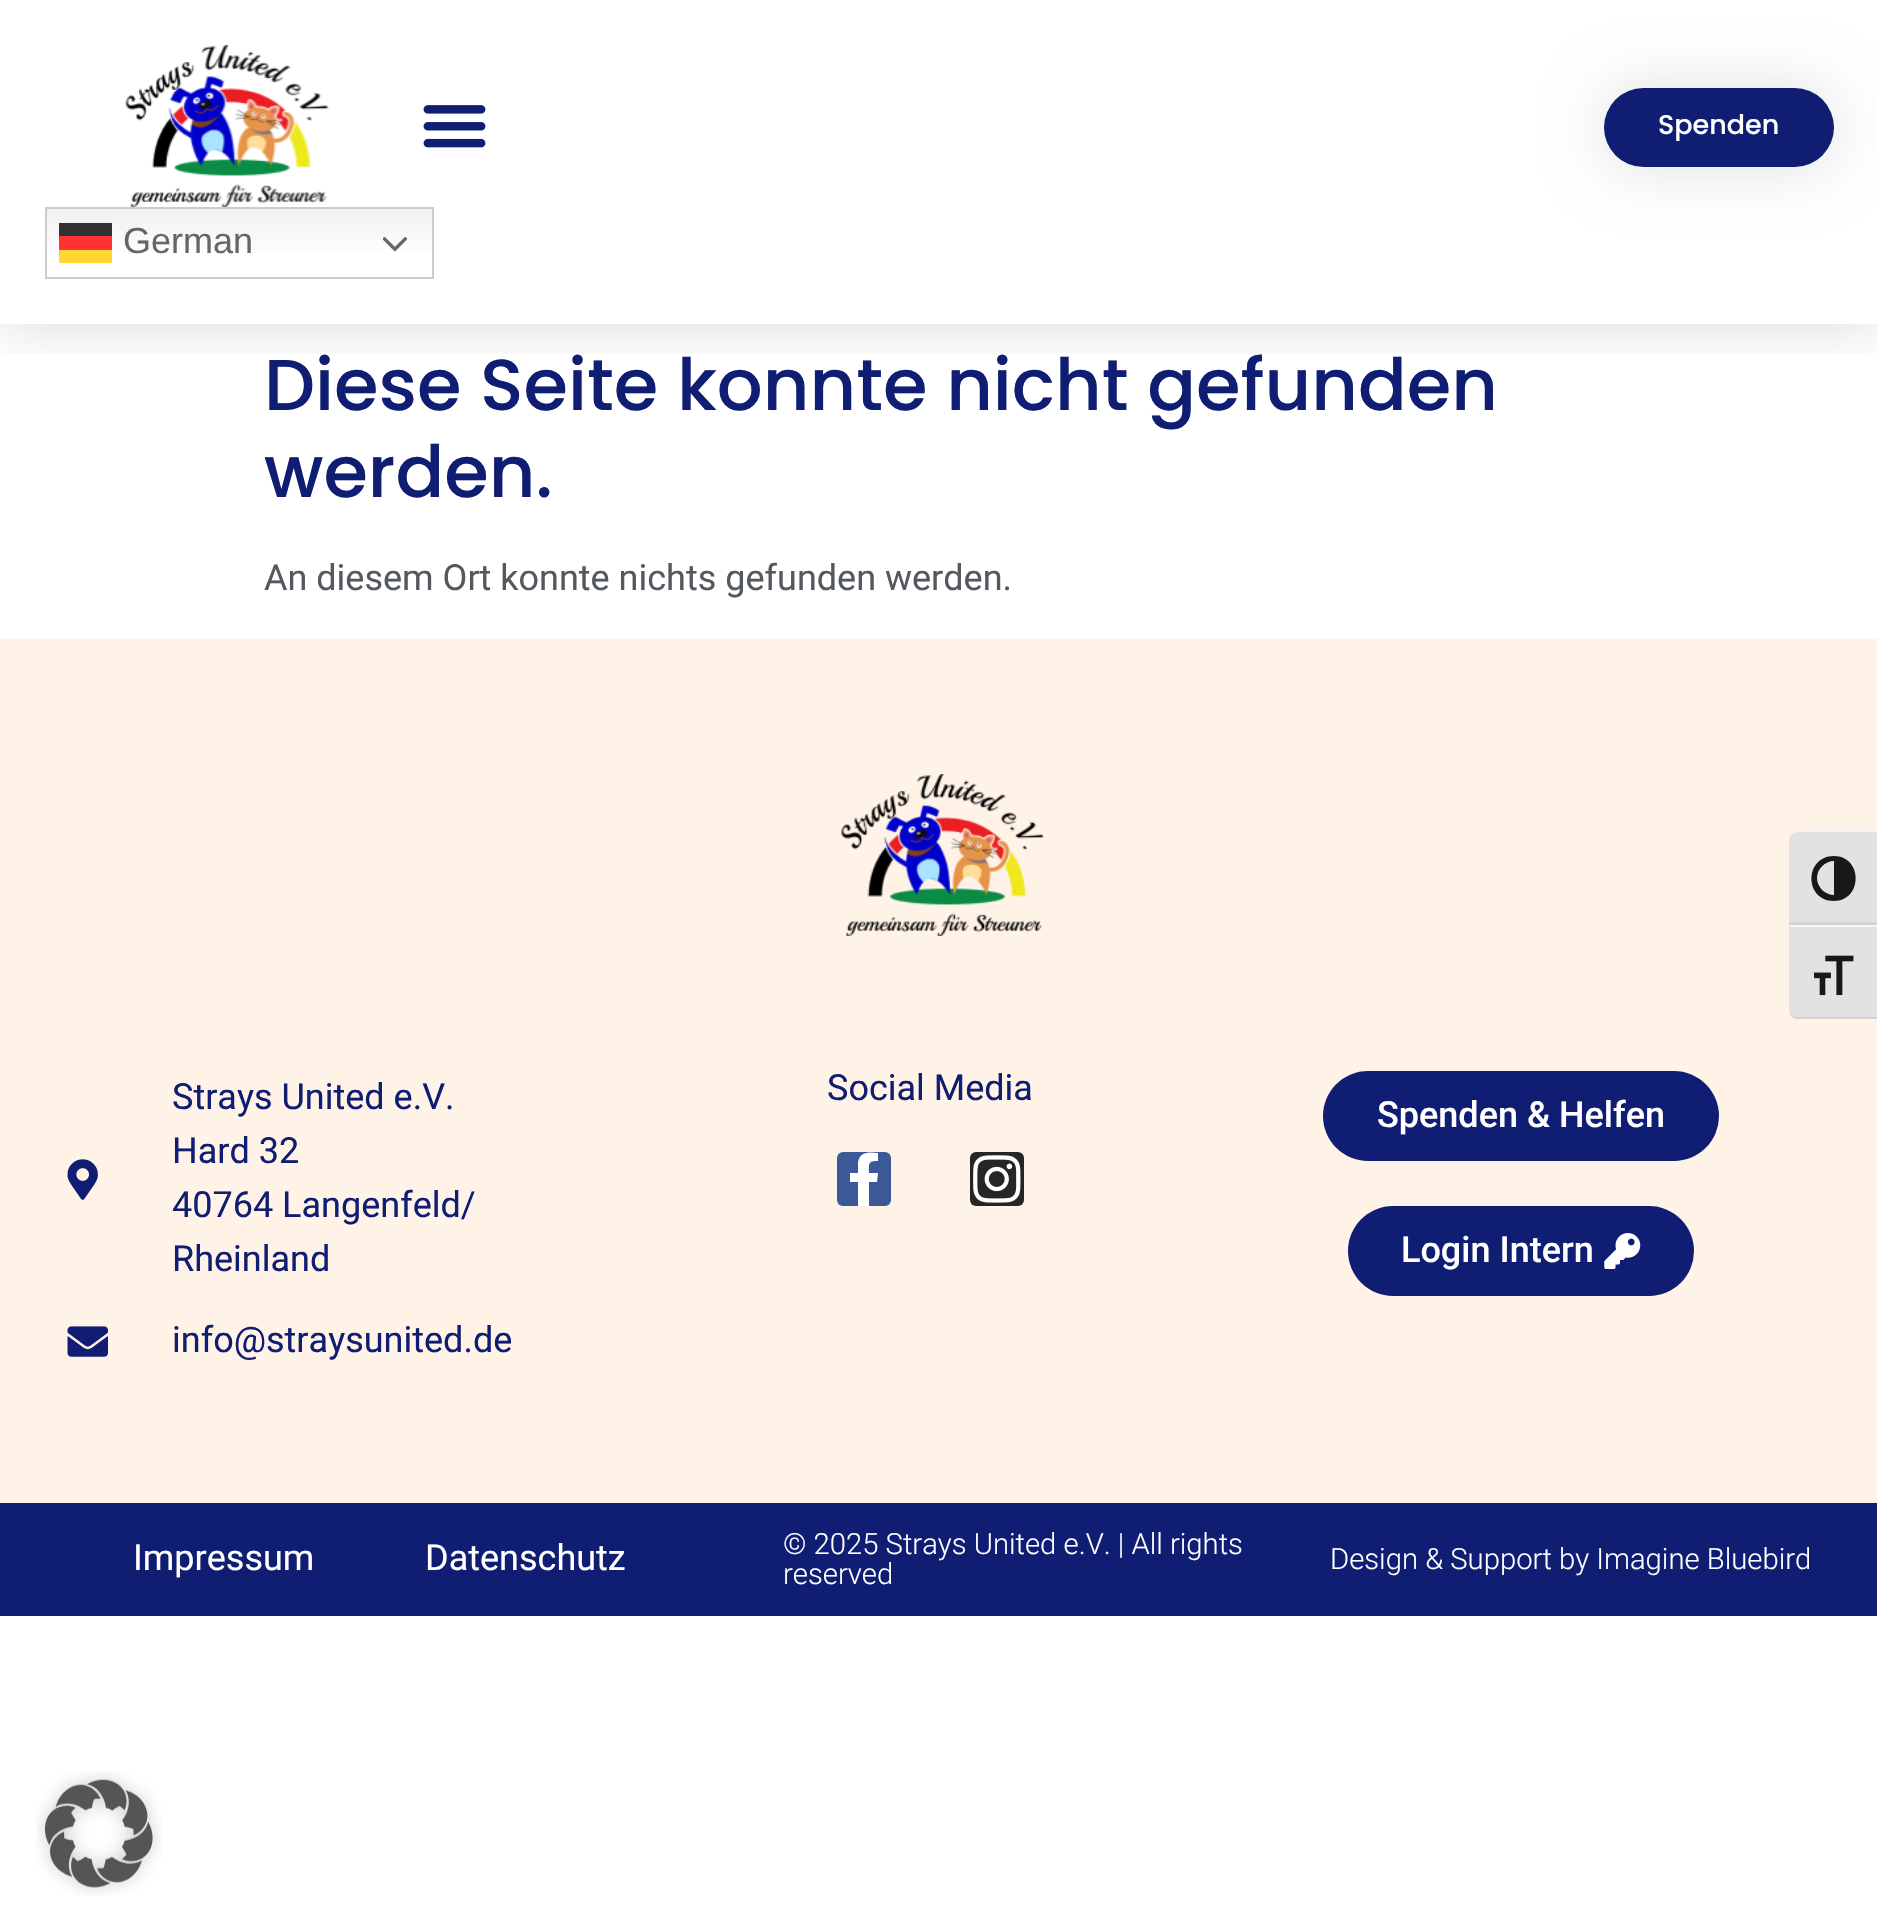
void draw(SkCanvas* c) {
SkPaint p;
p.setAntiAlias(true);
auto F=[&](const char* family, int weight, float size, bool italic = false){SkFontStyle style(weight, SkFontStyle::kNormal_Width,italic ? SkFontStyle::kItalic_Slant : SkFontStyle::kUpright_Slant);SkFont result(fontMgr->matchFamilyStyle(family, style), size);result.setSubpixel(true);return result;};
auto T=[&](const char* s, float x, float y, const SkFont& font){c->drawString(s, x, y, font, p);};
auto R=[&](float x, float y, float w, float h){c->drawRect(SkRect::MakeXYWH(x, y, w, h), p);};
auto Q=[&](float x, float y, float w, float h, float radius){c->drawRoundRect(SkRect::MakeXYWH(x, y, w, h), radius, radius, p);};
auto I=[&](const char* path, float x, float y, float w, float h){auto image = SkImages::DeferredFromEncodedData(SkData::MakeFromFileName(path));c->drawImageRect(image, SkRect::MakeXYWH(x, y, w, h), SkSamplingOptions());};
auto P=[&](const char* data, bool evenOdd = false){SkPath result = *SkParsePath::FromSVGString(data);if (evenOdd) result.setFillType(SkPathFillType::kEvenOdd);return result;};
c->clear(0xffffffff);
c->save();
c->clipRect(SkRect::MakeXYWH(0,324,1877,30));
p.setColor(0x26000000);
p.setMaskFilter(SkMaskFilter::MakeBlur(kNormal_SkBlurStyle, 27));
c->drawRect(SkRect::MakeXYWH(0,0,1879,324),p);
p.setMaskFilter(nullptr);
c->restore();
I("1.png",124,45,205,162);
I("2.png",423,105,63,43);
p.setColor(0x1f000000);
p.setMaskFilter(SkMaskFilter::MakeBlur(kNormal_SkBlurStyle, 30.5));
c->drawRoundRect(SkRect::MakeXYWH(1604,88,230,79),39.5,39.5,p);
p.setMaskFilter(nullptr);
p.setColor(0xff0f1d72);
Q(1604,88,230,79,39.5);
auto f1 = F("Poppins",500,27);
p.setColor(0xffffffff);
T("Spenden",1658,134,f1);
{
const SkColor colors[] = {0xffefefef,0xffffffff};
const float stops[] = {0,.7};
const SkPoint ends[] = {{240,207}, {240,279}};
p.setShader(SkGradientShader::MakeLinear(ends, colors, stops, 2, SkTileMode::kClamp));
p.setAlpha(255);
}
R(47,209,385,41);
{
const SkColor colors[] = {0xfffc3030,0xffff3333};
const float stops[] = {0,.7};
const SkPoint ends[] = {{240,207}, {240,279}};
p.setShader(SkGradientShader::MakeLinear(ends, colors, stops, 2, SkTileMode::kClamp));
p.setAlpha(255);
}
R(59,236,53,14);
{
const SkColor colors[] = {0xff303030,0xff333333};
const float stops[] = {0,.7};
const SkPoint ends[] = {{240,207}, {240,279}};
p.setShader(SkGradientShader::MakeLinear(ends, colors, stops, 2, SkTileMode::kClamp));
p.setAlpha(255);
}
R(59,223,53,13);
p.setStroke(true);
p.setStrokeWidth(2);
p.setShader(nullptr);
p.setColor(0xffcccccc);
c->drawRect(SkRect::MakeXYWH(46,208,387,70),p);
auto f2 = F("Liberation Sans",400,36);
p.setStroke(false);
p.setColor(0xff666666);
T("German",123,253,f2);
I("3.png",383,237,24,15);
p.setColor(0xffffd633);
R(59,250,53,13);
auto f3 = F("Poppins",500,72);
p.setColor(0xff0f1d72);
T("Diese Seite konnte nicht gefunden",264,410,f3);
T("werden.",264,497,f3);
auto f4 = F("Roboto",400,36);
p.setColor(0xff54595f);
T("An diesem Ort konnte nichts gefunden werden.",264,590,f4);
p.setColor(0xfffff3e7);
R(0,639,1877,864);
p.setColor(0xffe2e2e2);
c->drawPath(P("M1798 830h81v95h-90v-86c0-5 4-9 9-9z"),p);
p.setColor(0xfff5f5f5);
c->drawPath(P("M1798 832h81v-2h-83c-4 1-7 5-7 9c0-3 4-7 9-7z"),p);
p.setColor(0xffd2d2d2);
R(1789,922,88,3);
p.setColor(0xff181818);
c->drawPath(P("M1834 856c-30 0-30 45 0 45c29 0 29-45 0-45zm-17 22c0-9 8-17 17-17v34c-9 0-17-8-17-17z"),p);
p.setColor(0xffe2e2e2);
c->drawPath(P("M1789 925h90v94h-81c-5 0-9-4-9-9z"),p);
p.setColor(0xfff5f5f5);
R(1789,925,88,2);
p.setColor(0xffd2d2d2);
c->drawPath(P("M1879 1017v2h-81c-5 0-9-4-9-9c0 4 4 7 9 7z"),p);
I("4.png",1814,955,40,41);
I("5.png",841,774,203,162);
I("6.png",67,1159,31,41);
p.setColor(0xff0f1d72);
T("Strays United e.V.",172,1109,f4);
T("Hard 32",172,1163,f4);
T("40764 Langenfeld/",172,1217,f4);
T("Rheinland",172,1271,f4);
I("7.png",67,1326,41,31);
T("info@straysunited.de",172,1352,f4);
T("Social Media",827,1100,f4);
p.setColor(0xff3b5998);
Q(837,1152,54,54,6);
p.setColor(0xffffffff);
c->drawPath(P("M877 1182h-8v24h-11v-24h-8v-9h8v-11c2-11 12-10 20-9v8c-10 0-9 2-9 12h9z"),p);
p.setColor(0xff262626);
Q(970,1152,54,54,6);
I("8.png",973,1155,48,48);
p.setColor(0xff0f1d72);
Q(1323,1071,396,90,45);
auto f5 = F("Roboto",500,36);
p.setColor(0xffffffff);
T("Spenden & Helfen",1377,1127,f5);
p.setColor(0xff0f1d72);
Q(1348,1206,346,90,45);
p.setColor(0xffffffff);
T("Login Intern",1401,1262,f5);
I("9.png",1604,1233,37,36);
p.setColor(0xff0f1d72);
R(0,1503,1877,113);
p.setColor(0xffffffff);
T("Impressum",133,1570,f4);
T("Datenschutz",425,1570,f4);
auto f6 = F("Roboto",300,29.25);
T("© 2025 Strays United e.V. | All rights",783,1554,f6);
T("reserved",783,1584,f6);
T("Design & Support by Imagine Bluebird",1330,1569,f6);
I("10.png",36,1771,126,125);
}
